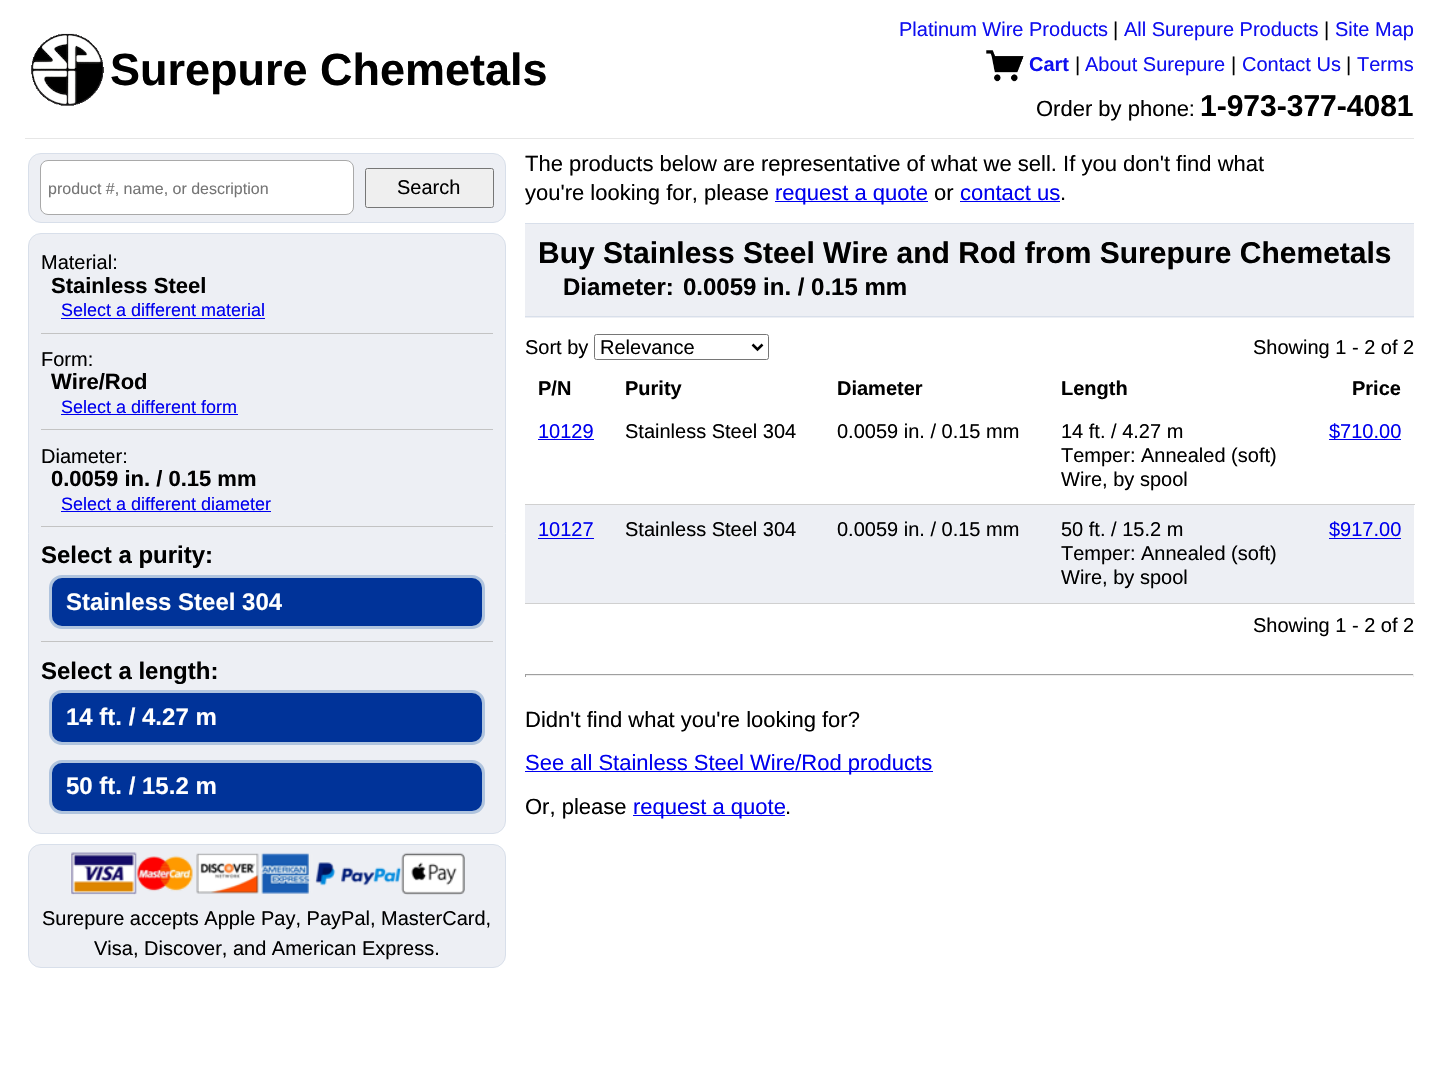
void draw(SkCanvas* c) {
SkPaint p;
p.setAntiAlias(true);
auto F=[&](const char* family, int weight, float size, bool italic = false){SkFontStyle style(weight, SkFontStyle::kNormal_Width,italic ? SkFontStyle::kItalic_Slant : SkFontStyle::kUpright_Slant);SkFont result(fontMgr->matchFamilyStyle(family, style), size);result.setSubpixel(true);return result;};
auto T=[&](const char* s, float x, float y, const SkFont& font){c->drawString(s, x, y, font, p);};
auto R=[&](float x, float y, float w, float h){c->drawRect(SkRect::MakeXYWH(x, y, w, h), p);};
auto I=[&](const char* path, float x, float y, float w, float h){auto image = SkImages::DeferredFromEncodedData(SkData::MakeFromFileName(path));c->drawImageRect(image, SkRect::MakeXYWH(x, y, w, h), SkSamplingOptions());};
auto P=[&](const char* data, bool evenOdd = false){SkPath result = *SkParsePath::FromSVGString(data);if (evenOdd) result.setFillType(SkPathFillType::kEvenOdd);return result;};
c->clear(0xffffffff);
I("1.png",31,33,73,73);
auto f1 = F("Liberation Sans",700,45);
p.setColor(0xff000000);
T("Surepure Chemetals",110,85,f1);
auto f2 = F("Liberation Sans",400,20);
p.setColor(0xff0f0fef);
T("Platinum Wire Products",899,36,f2);
p.setColor(0xff000000);
T("|",1113,36,f2);
p.setColor(0xff0f0fef);
T("All Surepure Products",1124,36,f2);
p.setColor(0xff000000);
T("|",1324,36,f2);
p.setColor(0xff0f0fef);
T("Site Map",1335,36,f2);
I("2.png",986,50,38,32);
auto f3 = F("Liberation Sans",700,20);
T("Cart",1029,71,f3);
p.setColor(0xff000000);
T("|",1075,71,f2);
p.setColor(0xff0f0fef);
T("About Surepure",1085,71,f2);
p.setColor(0xff000000);
T("|",1231,71,f2);
p.setColor(0xff0f0fef);
T("Contact Us",1242,71,f2);
p.setColor(0xff000000);
T("|",1346,71,f2);
p.setColor(0xff0f0fef);
T("Terms",1357,71,f2);
auto f4 = F("Liberation Sans",400,22);
p.setColor(0xff000000);
T("Order by phone:",1036,116,f4);
auto f5 = F("Liberation Sans",700,30);
T("1-973-377-4081",1200,116,f5);
p.setColor(0xffe6e6e6);
R(25,138,1389,1);
p.setColor(0xffedeff4);
c->drawRoundRect(SkRect::MakeXYWH(28.5,153.5,477,69),12.5,12.5,p);
p.setStroke(true);
p.setStrokeWidth(1);
p.setColor(0xffd8dfea);
c->drawRoundRect(SkRect::MakeXYWH(28.5,153.5,477,69),12.5,12.5,p);
p.setStroke(false);
p.setColor(0xffffffff);
c->drawRoundRect(SkRect::MakeXYWH(40.5,160.5,313,54),7.5,7.5,p);
p.setStroke(true);
p.setColor(0xffa9a9a9);
c->drawRoundRect(SkRect::MakeXYWH(40.5,160.5,313,54),7.5,7.5,p);
auto f6 = F("Liberation Sans",400,16);
p.setStroke(false);
p.setColor(0xff757575);
T("product #, name, or description",48,194,f6);
p.setColor(0xffefefef);
c->drawRoundRect(SkRect::MakeXYWH(365.5,168.5,128,39),2,2,p);
p.setStroke(true);
p.setColor(0xff767676);
c->drawRoundRect(SkRect::MakeXYWH(365.5,168.5,128,39),2,2,p);
p.setStroke(false);
p.setColor(0xff000000);
T("Search",397,194,f2);
p.setColor(0xffedeff4);
c->drawRoundRect(SkRect::MakeXYWH(28.5,233.5,477,600),12.5,12.5,p);
p.setStroke(true);
p.setColor(0xffd8dfea);
c->drawRoundRect(SkRect::MakeXYWH(28.5,233.5,477,600),12.5,12.5,p);
p.setStroke(false);
p.setColor(0xffc3c3c3);
R(41,333,452,1);
p.setColor(0xff000000);
T("Material:",41,269,f2);
auto f7 = F("Liberation Sans",700,22);
T("Stainless Steel",51,293,f7);
auto f8 = F("Liberation Sans",400,18);
p.setColor(0xff0000ee);
T("Select a different material",61,316,f8);
R(61,318,204,1);
p.setColor(0xffc3c3c3);
R(41,429,452,1);
p.setColor(0xff000000);
T("Form:",41,366,f2);
T("Wire/Rod",51,389,f7);
p.setColor(0xff0000ee);
T("Select a different form",61,413,f8);
R(61,414,177,1);
p.setColor(0xffc3c3c3);
R(41,526,452,1);
p.setColor(0xff000000);
T("Diameter:",41,463,f2);
T("0.0059 in. / 0.15 mm",51,486,f7);
p.setColor(0xff0000ee);
T("Select a different diameter",61,510,f8);
R(61,511,210,1);
p.setColor(0xffc3c3c3);
R(41,641,452,1);
auto f9 = F("Liberation Sans",700,24);
p.setColor(0xff000000);
T("Select a purity:",41,563,f9);
p.setColor(0xff003399);
c->drawRoundRect(SkRect::MakeXYWH(50.5,576.5,433,51),11.5,11.5,p);
p.setStroke(true);
p.setStrokeWidth(3);
p.setColor(0xffb0c4de);
c->drawRoundRect(SkRect::MakeXYWH(50.5,576.5,433,51),11.5,11.5,p);
p.setStroke(false);
p.setColor(0xffffffff);
T("Stainless Steel 304",66,610,f9);
p.setColor(0xff000000);
T("Select a length:",41,679,f9);
p.setColor(0xff003399);
c->drawRoundRect(SkRect::MakeXYWH(50.5,691.5,433,52),11.5,11.5,p);
p.setStroke(true);
p.setColor(0xffb0c4de);
c->drawRoundRect(SkRect::MakeXYWH(50.5,691.5,433,52),11.5,11.5,p);
p.setStroke(false);
p.setColor(0xffffffff);
T("14 ft. / 4.27 m",66,725,f9);
p.setColor(0xff003399);
c->drawRoundRect(SkRect::MakeXYWH(50.5,761.5,433,51),11.5,11.5,p);
p.setStroke(true);
p.setColor(0xffb0c4de);
c->drawRoundRect(SkRect::MakeXYWH(50.5,761.5,433,51),11.5,11.5,p);
p.setStroke(false);
p.setColor(0xffffffff);
T("50 ft. / 15.2 m",66,794,f9);
p.setColor(0xffedeff4);
c->drawRoundRect(SkRect::MakeXYWH(28.5,844.5,477,123),12.5,12.5,p);
p.setStroke(true);
p.setStrokeWidth(1);
p.setColor(0xffd8dfea);
c->drawRoundRect(SkRect::MakeXYWH(28.5,844.5,477,123),12.5,12.5,p);
I("3.png",70,852,395,43);
p.setStroke(false);
p.setColor(0xff000000);
T("Surepure accepts Apple Pay, PayPal, MasterCard,",42,925,f2);
T("Visa, Discover, and American Express.",94,955,f2);
T("The products below are representative of what we sell. If you don't find what",525,171,f4);
T("you're looking for, please",525,200,f4);
p.setColor(0xff0000ee);
R(775,201,153,1);
T("request a quote",775,200,f4);
p.setColor(0xff000000);
T("or",934,200,f4);
p.setColor(0xff0000ee);
T("contact us",960,200,f4);
R(960,201,100,1);
p.setColor(0xff000000);
T(".",1060,200,f4);
p.setColor(0xffedeff4);
R(525,224,889,94);
p.setColor(0xffd8dfea);
R(525,223,889,1);
R(525,316,889,1);
p.setColor(0xff000000);
T("Buy Stainless Steel Wire and Rod from Surepure Chemetals",538,263,f5);
T("Diameter:",563,295,f9);
T("0.0059 in. / 0.15 mm",683,295,f9);
T("Sort by",525,354,f2);
p.setStroke(true);
p.setColor(0xff767676);
c->drawRoundRect(SkRect::MakeXYWH(594.5,334.5,174,25),2,2,p);
p.setStrokeWidth(2.5);
p.setColor(0xff000000);
c->drawPath(P("M752.5 344.5l5 5l5-5"),p);
p.setStroke(false);
T("Relevance",600,354,f2);
T("Showing 1 - 2 of 2",1253,354,f2);
T("P/N",538,395,f3);
T("Purity",625,395,f3);
T("Diameter",837,395,f3);
T("Length",1061,395,f3);
T("Price",1352,395,f3);
p.setColor(0xff0000ee);
T("10129",538,438,f2);
R(538,439,56,1);
p.setColor(0xff000000);
T("Stainless Steel 304",625,438,f2);
T("0.0059 in. / 0.15 mm",837,438,f2);
T("14 ft. / 4.27 m",1061,438,f2);
T("Temper: Annealed (soft)",1061,462,f2);
T("Wire, by spool",1061,486,f2);
p.setColor(0xffd0d0d0);
R(525,504,890,1);
p.setColor(0xff0000ee);
R(1329,439,72,1);
T("$710.00",1329,438,f2);
p.setColor(0xffedeff4);
R(525,505,889,98);
p.setColor(0xff0000ee);
T("10127",538,536,f2);
R(538,538,56,1);
p.setColor(0xff000000);
T("Stainless Steel 304",625,536,f2);
T("0.0059 in. / 0.15 mm",837,536,f2);
T("50 ft. / 15.2 m",1061,536,f2);
T("Temper: Annealed (soft)",1061,560,f2);
T("Wire, by spool",1061,584,f2);
p.setColor(0xffd0d0d0);
R(525,603,890,1);
p.setColor(0xff0000ee);
T("$917.00",1329,536,f2);
R(1329,538,72,1);
p.setColor(0xff000000);
T("Showing 1 - 2 of 2",1253,632,f2);
p.setColor(0xff9f9f9f);
R(525,674,889,1);
p.setColor(0xffeeeeee);
R(1413,674,1,3);
R(525,675,889,1);
p.setColor(0xff9f9f9f);
R(525,674,1,3);
p.setColor(0xff000000);
T("Didn't find what you're looking for?",525,727,f4);
p.setColor(0xff0000ee);
R(525,771,408,1);
T("See all Stainless Steel Wire/Rod products",525,770,f4);
p.setColor(0xff000000);
T("Or, please",525,814,f4);
p.setColor(0xff0000ee);
R(633,815,152,1);
T("request a quote",633,814,f4);
p.setColor(0xff000000);
T(".",785,814,f4);
}
